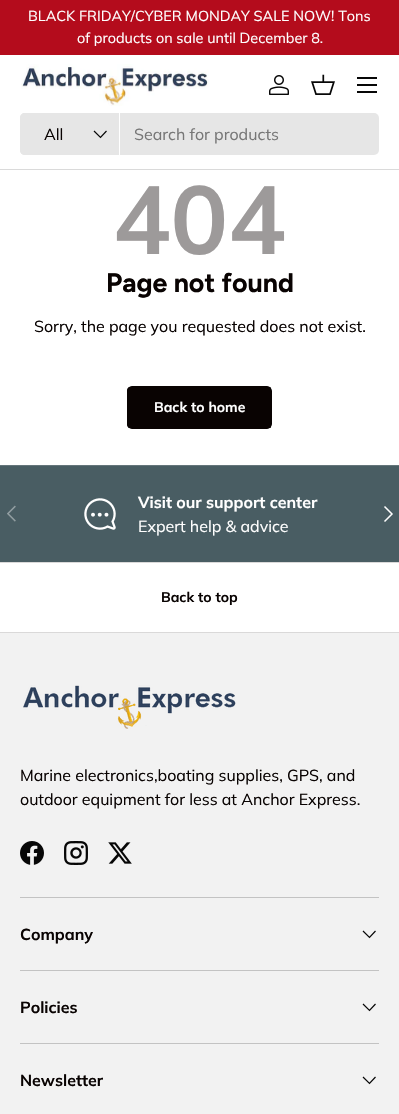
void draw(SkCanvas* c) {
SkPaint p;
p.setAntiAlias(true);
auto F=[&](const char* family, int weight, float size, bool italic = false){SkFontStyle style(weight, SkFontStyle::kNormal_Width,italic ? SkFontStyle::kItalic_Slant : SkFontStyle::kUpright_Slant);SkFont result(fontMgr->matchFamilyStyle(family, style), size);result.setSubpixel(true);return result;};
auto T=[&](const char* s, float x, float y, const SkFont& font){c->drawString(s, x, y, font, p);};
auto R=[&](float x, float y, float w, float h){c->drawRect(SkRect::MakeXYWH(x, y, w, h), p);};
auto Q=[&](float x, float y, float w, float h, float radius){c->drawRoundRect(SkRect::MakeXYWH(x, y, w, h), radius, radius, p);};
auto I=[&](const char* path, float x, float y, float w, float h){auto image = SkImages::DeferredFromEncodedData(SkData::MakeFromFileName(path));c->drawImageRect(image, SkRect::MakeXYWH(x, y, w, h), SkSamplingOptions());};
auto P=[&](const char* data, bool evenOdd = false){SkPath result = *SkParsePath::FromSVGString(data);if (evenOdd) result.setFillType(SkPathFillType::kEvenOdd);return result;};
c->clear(0xffffffff);
p.setColor(0xffb40c1c);
R(0,0,399,55);
auto f1 = F("Muli",400,14.4);
p.setColor(0xffffffff);
T("BLACK FRIDAY/CYBER MONDAY SALE NOW! Tons",28,21,f1);
T("of products on sale until December 8.",77,43,f1);
p.setColor(0xffdadada);
R(0,169,399,1);
I("1.png",21,64,188,42);
I("2.png",269,75,20,20);
I("3.png",311,74,24,21);
p.setColor(0xff070707);
R(357,77,20,2);
R(357,91,20,2);
R(357,84,20,2);
p.setColor(0xffe6e6e6);
Q(20,113,359,42,5);
c->drawPath(P("M25 113h95v42h-95c-3 0-5-2-5-5v-32c0-3 2-5 5-5z"),p);
p.setColor(0xffffffff);
R(119,113,1,42);
auto f2 = F("Muli",400,16);
p.setColor(0xff090302);
T("All",44,140,f2);
p.setStroke(true);
p.setStrokeWidth(1.2);
p.setColor(0xff070707);
c->drawPath(P("M106.5 131l-6 6.5l-6.5-6.5"),p);
p.setStroke(false);
p.setColor(0xff777777);
T("Search for products",134,140,f2);
auto f3 = F("Muli",700,96);
p.setColor(0xff9d9a9a);
T("404",113,254,f3);
auto f4 = F("Figtree",700,26.75);
p.setColor(0xff090302);
T("Page not found",106,292,f4);
T("Sorry, the page you requested does not exist.",34,332,f2);
c->save();
c->clipPath(P("M132 386h135c3 0 5 2 5 5v33c0 3-2 5-5 5h-135c-3 0-5-2-5-5v-33c0-3 2-5 5-5z"),true);
{
const SkColor colors[] = {0xff36302f,0xff090302,0xff090302};
const float stops[] = {.6,.6,1};
const SkPoint ends[] = {{-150,356}, {263,459}};
p.setShader(SkGradientShader::MakeLinear(ends, colors, stops, 3, SkTileMode::kClamp));
p.setAlpha(255);
}
R(127,387,144,41);
c->restore();
p.setStroke(true);
p.setStrokeWidth(1);
p.setShader(nullptr);
p.setColor(0xff090302);
c->drawRoundRect(SkRect::MakeXYWH(127.5,386.5,144,42),4.5,4.5,p);
auto f5 = F("Muli",700,14);
p.setStroke(false);
p.setColor(0xffffffff);
T("Back to home",154,412,f5);
p.setColor(0xff495d63);
R(0,466,399,96);
p.setColor(0xff64757a);
R(0,465,399,1);
I("4.png",84,498,32,32);
auto f6 = F("Muli",700,16);
p.setColor(0xffffffff);
T("Visit our support center",138,508,f6);
T("Expert help & advice",138,532,f2);
I("5.png",7,505,9,17);
p.setStroke(true);
p.setStrokeWidth(1.5);
c->drawPath(P("M384.5 506.5l7.5 7.5l-7.5 7.5"),p);
p.setStroke(false);
p.setColor(0xffdad9d9);
R(0,562,399,1);
R(0,632,399,1);
p.setColor(0xff090302);
T("Back to top",161,602,f5);
p.setColor(0xfff2f2f2);
R(0,633,399,481);
I("6.png",23,685,213,44);
p.setColor(0xff090302);
T("Marine electronics,boating supplies, GPS, and",20,781,f2);
T("outdoor equipment for less at Anchor Express.",20,805,f2);
I("7.png",20,841,24,24);
I("8.png",64,841,24,24);
I("9.png",108,842,24,22);
p.setColor(0xffc3c3c3);
R(20,897,359,1);
R(20,970,359,1);
p.setColor(0xff090302);
T("Company",20,940,f6);
p.setStroke(true);
p.setStrokeWidth(1.2);
p.setColor(0xff070707);
c->drawPath(P("M375.5 931l-6 6.5l-6.5-6.5"),p);
p.setStroke(false);
p.setColor(0xffc3c3c3);
R(20,1043,359,1);
p.setColor(0xff090302);
T("Policies",20,1013,f6);
p.setStroke(true);
p.setColor(0xff070707);
c->drawPath(P("M375.5 1004l-6 6.5l-6.5-6.5"),p);
p.setStroke(false);
p.setColor(0xff090302);
T("Newsletter",20,1086,f6);
p.setStroke(true);
p.setColor(0xff070707);
c->drawPath(P("M375.5 1077l-6 6.5l-6.5-6.5"),p);
}
